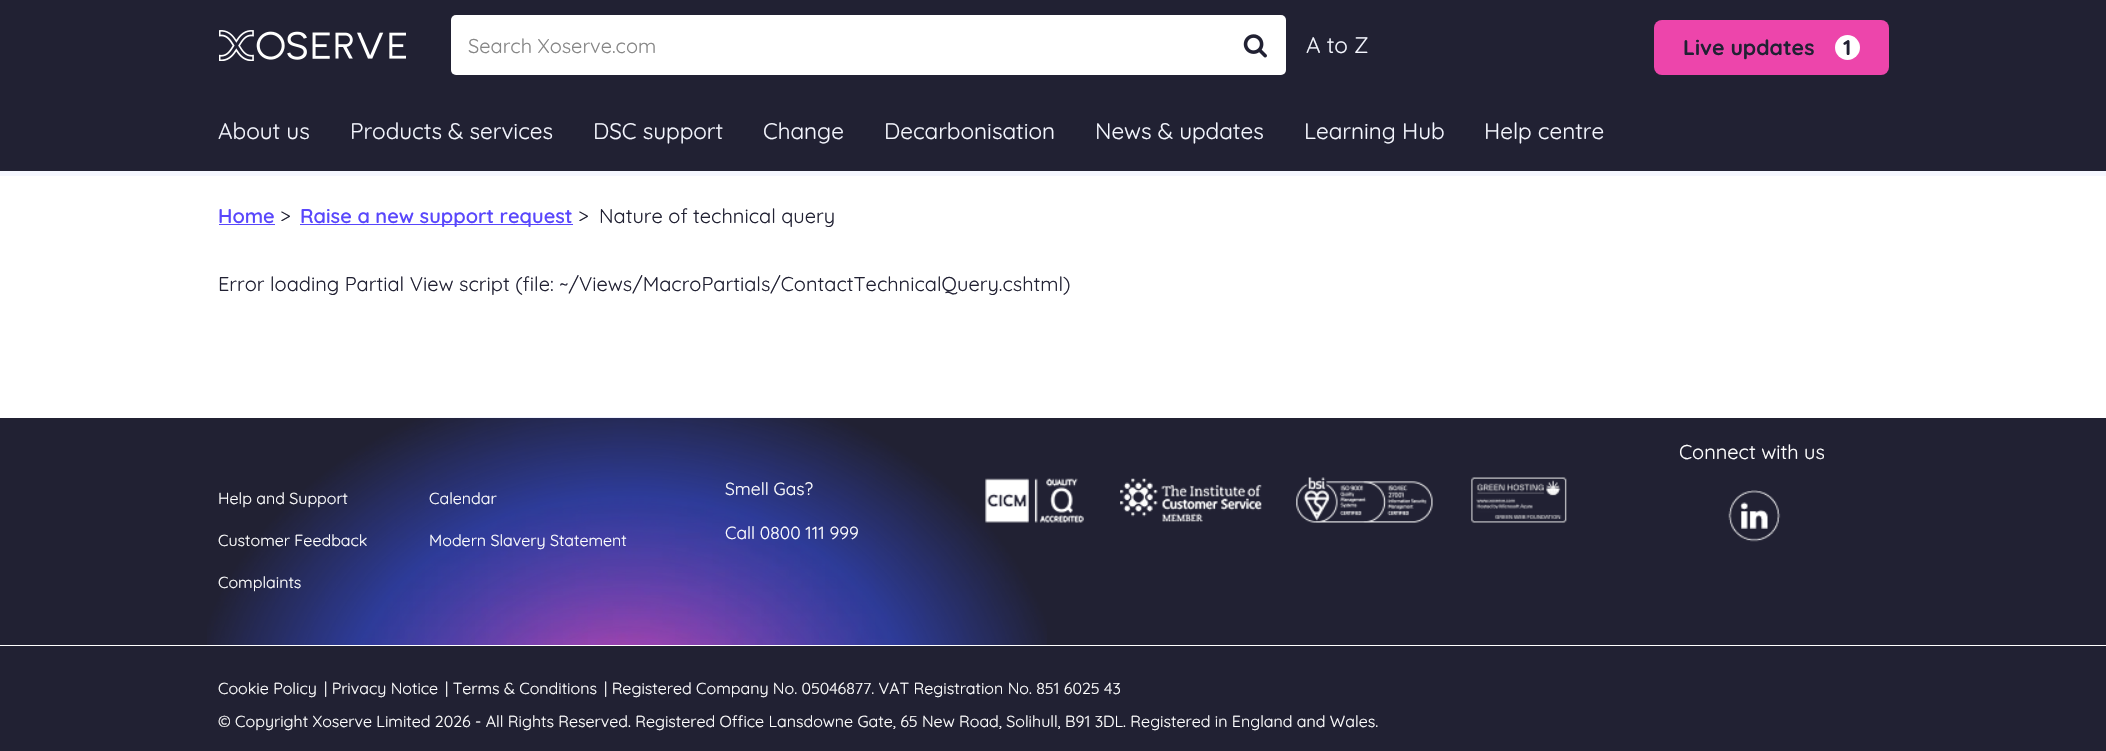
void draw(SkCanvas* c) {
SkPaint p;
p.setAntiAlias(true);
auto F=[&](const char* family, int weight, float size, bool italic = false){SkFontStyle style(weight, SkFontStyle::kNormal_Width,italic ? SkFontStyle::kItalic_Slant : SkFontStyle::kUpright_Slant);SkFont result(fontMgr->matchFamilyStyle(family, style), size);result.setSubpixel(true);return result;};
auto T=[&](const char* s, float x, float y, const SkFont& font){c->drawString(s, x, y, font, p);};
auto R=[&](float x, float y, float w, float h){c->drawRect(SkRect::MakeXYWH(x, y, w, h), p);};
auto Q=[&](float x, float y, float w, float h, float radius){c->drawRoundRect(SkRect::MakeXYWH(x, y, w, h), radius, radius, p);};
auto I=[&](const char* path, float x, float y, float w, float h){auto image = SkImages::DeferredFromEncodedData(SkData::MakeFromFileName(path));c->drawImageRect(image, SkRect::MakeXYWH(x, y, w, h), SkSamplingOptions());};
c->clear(0xffffffff);
p.setColor(0xff212133);
R(0,0,2106,171);
p.setColor(0xfff5f7ff);
R(0,171,2106,5);
I("1.png",219,30,187,31);
p.setColor(0xffffffff);
Q(451,15,835,60,5);
auto f1 = F("Quicksand",400,20);
p.setColor(0xff868686);
T("Search Xoserve.com",468,53,f1);
I("2.png",1243,34,24,24);
auto f2 = F("Quicksand",400,22.5);
p.setColor(0xfff5f7ff);
T("A to Z",1306,53,f2);
p.setColor(0xffed45ab);
Q(1654,20,235,55,8);
auto f3 = F("Quicksand",700,21.25);
p.setColor(0xff212133);
T("Live updates",1683,55,f3);
p.setColor(0xffffffff);
c->drawCircle(1847.5,47.5,12.5,p);
p.setColor(0xff212133);
T("1",1843,55,f3);
p.setColor(0xfff5f7ff);
T("About us",218,139,f2);
T("Products & services",350,139,f2);
T("DSC support",593,139,f2);
T("Change",763,139,f2);
T("Decarbonisation",884,139,f2);
T("News & updates",1095,139,f2);
T("Learning Hub",1304,139,f2);
T("Help centre",1484,139,f2);
auto f4 = F("Quicksand",600,20);
p.setColor(0xff5947fc);
T("Home",218,223,f4);
R(219,224,56,1);
p.setColor(0xff212133);
T(">",280,223,f1);
p.setColor(0xff5947fc);
R(300,224,273,1);
T("Raise a new support request",300,223,f4);
p.setColor(0xff212133);
T(">",578,223,f1);
T("Nature of technical query",599,223,f1);
T("Error loading Partial View script (file: ~/Views/MacroPartials/ContactTechnicalQuery.cshtml)",218,291,f1);
R(0,418,2106,227);
I("3.png",207,417,840,228);
p.setColor(0xffffffff);
T("Connect with us",1679,459,f1);
I("4.png",1728,490,53,52);
auto f5 = F("Quicksand",400,16);
T("Help and Support",218,504,f5);
T("Calendar",429,504,f5);
T("Customer Feedback",218,546,f5);
T("Modern Slavery Statement",429,546,f5);
T("Complaints",218,588,f5);
auto f6 = F("Quicksand",400,17.5);
T("Smell Gas?",725,495,f6);
T("Call 0800 111 999",725,539,f6);
I("5.png",985,478,99,45);
I("6.png",1120,478,142,44);
I("7.png",1296,477,137,46);
I("8.png",1471,477,96,46);
p.setColor(0xff212133);
R(0,646,2106,105);
p.setColor(0xffffffff);
T("Cookie Policy",218,694,f5);
T("| Privacy Notice",324,694,f5);
T("| Terms & Conditions",445,694,f5);
T("| Registered Company No. 05046877. VAT Registration No. 851 6025 43",604,694,f5);
T("© Copyright Xoserve Limited 2026 - All Rights Reserved. Registered Office Lansdowne Gate, 65 New Road, Solihull, B91 3DL. Registered in England and Wales.",218,727,f5);
}
